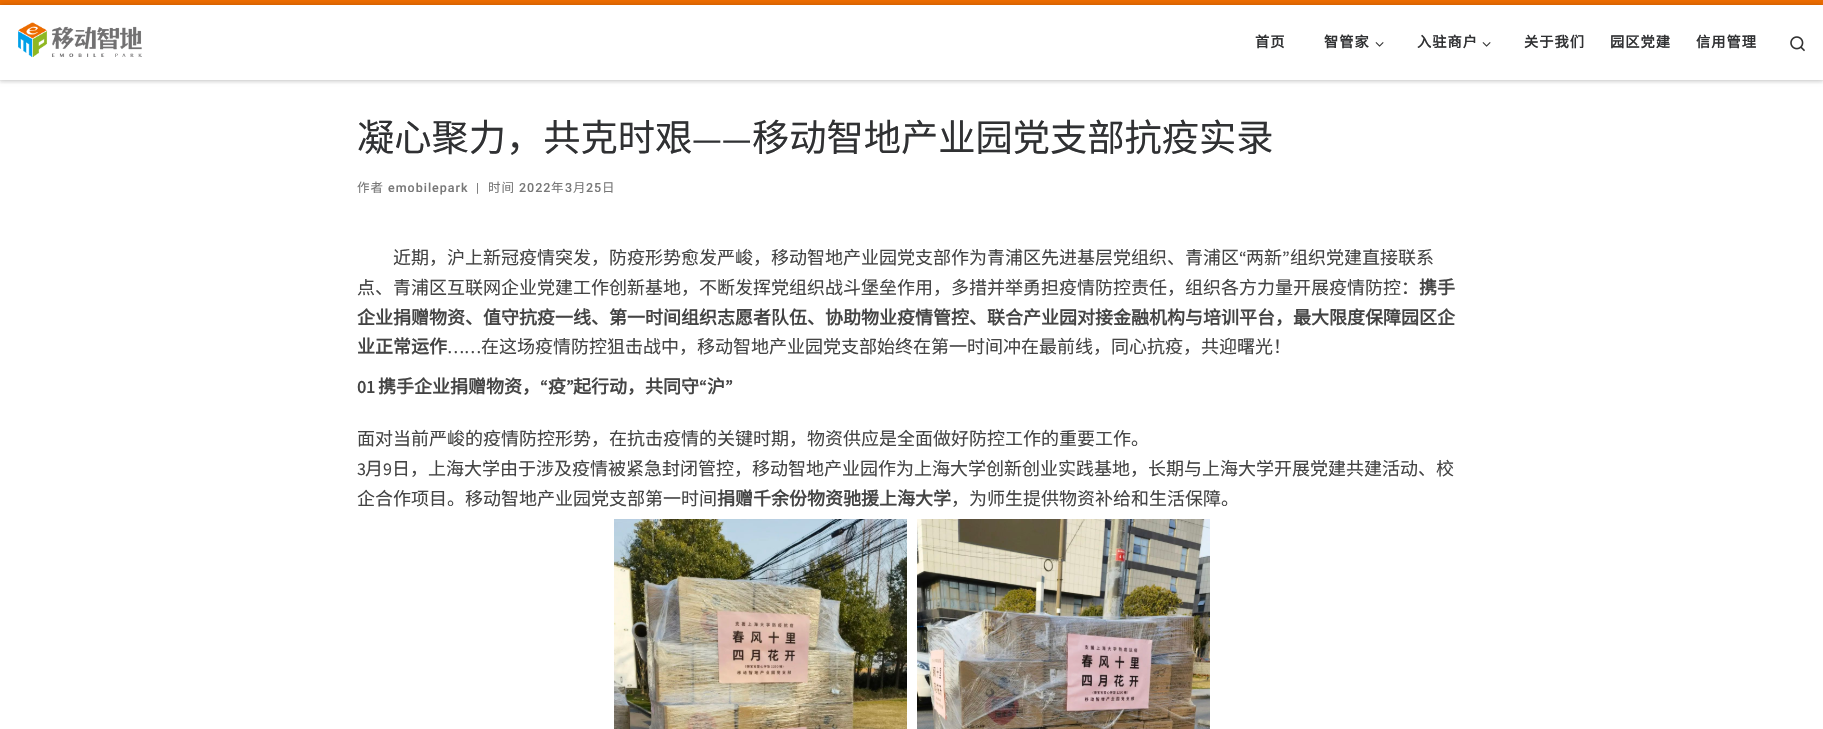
void draw(SkCanvas* c) {
SkPaint p;
p.setAntiAlias(true);
auto F=[&](const char* family, int weight, float size, bool italic = false){SkFontStyle style(weight, SkFontStyle::kNormal_Width,italic ? SkFontStyle::kItalic_Slant : SkFontStyle::kUpright_Slant);SkFont result(fontMgr->matchFamilyStyle(family, style), size);result.setSubpixel(true);return result;};
auto T=[&](const char* s, float x, float y, const SkFont& font){c->drawString(s, x, y, font, p);};
auto L=[&](const char* s, float x, float y, const SkFont& font, const SkPaint& ink, float letter, float word){std::vector<SkGlyphID> glyphs(font.countText(s, strlen(s), SkTextEncoding::kUTF8));std::vector<float> xs(glyphs.size());font.textToGlyphs(s, strlen(s), SkTextEncoding::kUTF8, glyphs);font.getXPos(glyphs, xs, x);float extra = 0;for (size_t i = 0; i < glyphs.size(); i++) {xs[i] += extra;extra += letter + word * (glyphs[i] == font.unicharToGlyph(' '));}c->drawTextBlob(SkTextBlob::MakeFromPosHGlyphs(glyphs, xs, y, font), 0, 0, ink);};
auto R=[&](float x, float y, float w, float h){c->drawRect(SkRect::MakeXYWH(x, y, w, h), p);};
auto I=[&](const char* path, float x, float y, float w, float h){auto image = SkImages::DeferredFromEncodedData(SkData::MakeFromFileName(path));c->drawImageRect(image, SkRect::MakeXYWH(x, y, w, h), SkSamplingOptions());};
auto P=[&](const char* data, bool evenOdd = false){SkPath result = *SkParsePath::FromSVGString(data);if (evenOdd) result.setFillType(SkPathFillType::kEvenOdd);return result;};
c->clear(0xffffffff);
p.setColor(0xffed6c00);
R(0,0,1823,5);
c->save();
c->clipRect(SkRect::MakeXYWH(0,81,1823,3));
p.setColor(0x14666666);
p.setMaskFilter(SkMaskFilter::MakeBlur(kNormal_SkBlurStyle, 1));
c->drawRect(SkRect::MakeXYWH(0,7,1823,76),p);
p.setMaskFilter(nullptr);
c->restore();
p.setColor(0xffefefef);
R(0,80,1823,1);
c->save();
c->clipPath(P("M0 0h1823v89h-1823zm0 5h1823v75h-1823z",true),true);
p.setColor(0x33000000);
p.setMaskFilter(SkMaskFilter::MakeBlur(kNormal_SkBlurStyle, 2.5));
c->drawRect(SkRect::MakeXYWH(0,5,1823,75),p);
p.setMaskFilter(nullptr);
c->restore();
I("1.png",18,22,124,35);
auto f1 = F("Noto Sans CJK SC",700,14.25);
p.setColor(0xff303133);
L("首页",1255,47,f1,p,1,0);
L("智管家",1324,47,f1,p,1,0);
I("2.png",1375,42,9,5);
L("入驻商户",1417,47,f1,p,1,0);
I("2.png",1482,42,9,5);
L("关于我们",1524,47,f1,p,1,0);
L("园区党建",1610,47,f1,p,1,0);
L("信用管理",1696,47,f1,p,1,0);
I("3.png",1790,36,15,16);
auto f2 = F("Noto Sans CJK SC",400,37.25);
T("凝心聚力，共克时艰",357,151,f2);
auto f3 = F("Source Sans Pro",400,37.25);
T("——",692,151,f3);
T("移动智地产业园党支部抗疫实录",752,151,f2);
auto f4 = F("Noto Sans CJK SC",400,12.5);
p.setColor(0xff777777);
L("作者",357,192,f4,p,1,0);
auto f5 = F("Roboto",500,12.5);
L("emobilepark",388,192,f5,p,1,0);
auto f6 = F("Roboto",400,12.5);
L("|",476,192,f6,p,1,0);
L("时间",488,192,f4,p,1,0);
L("2022",519,192,f5,p,1,0);
L("年",551,192,f4,p,1,0);
L("3",565,192,f5,p,1,0);
L("月",573,192,f4,p,1,0);
L("25",586,192,f5,p,1,0);
L("日",602,192,f4,p,1,0);
auto f7 = F("Noto Sans CJK SC",400,18);
p.setColor(0xff444444);
T("近期，沪上新冠疫情突发，防疫形势愈发严峻，移动智地产业园党支部作为青浦区先进基层党组织、青浦区",393,264,f7);
auto f8 = F("Source Sans Pro",400,18);
T("“",1239,264,f8);
T("两新",1246,264,f7);
T("”",1282,264,f8);
T("组织党建直接联系",1290,264,f7);
T("点、青浦区互联网企业党建工作创新基地，不断发挥党组织战斗堡垒作用，多措并举勇担疫情防控责任，组织各方力量开展疫情防控：",357,294,f7);
auto f9 = F("Noto Sans CJK SC",700,18);
T("携手",1419,294,f9);
T("企业捐赠物资、值守抗疫一线、第一时间组织志愿者队伍、协助物业疫情管控、联合产业园对接金融机构与培训平台，最大限度保障园区企",357,324,f9);
T("业正常运作",357,353,f9);
T("……",447,353,f8);
T("在这场疫情防控狙击战中，移动智地产业园党支部始终在第一时间冲在最前线，同心抗疫，共迎曙光！",481,353,f7);
auto f10 = F("Source Sans Pro",700,18);
T("01",357,393,f10);
T("携手企业捐赠物资，",378,393,f9);
T("“",540,393,f10);
T("疫",548,393,f9);
T("”",566,393,f10);
T("起行动，共同守",573,393,f9);
T("“",699,393,f10);
T("沪",707,393,f9);
T("”",725,393,f10);
T("面对当前严峻的疫情防控形势，在抗击疫情的关键时期，物资供应是全面做好防控工作的重要工作。",357,445,f7);
T("3",357,475,f8);
T("月",365,475,f7);
T("9",383,475,f8);
T("日，上海大学由于涉及疫情被紧急封闭管控，移动智地产业园作为上海大学创新创业实践基地，长期与上海大学开展党建共建活动、校",392,475,f7);
T("企合作项目。移动智地产业园党支部第一时间",357,505,f7);
T("捐赠千余份物资驰援上海大学",717,505,f9);
T("，为师生提供物资补给和生活保障。",951,505,f7);
I("4.png",614,519,596,210);
}
